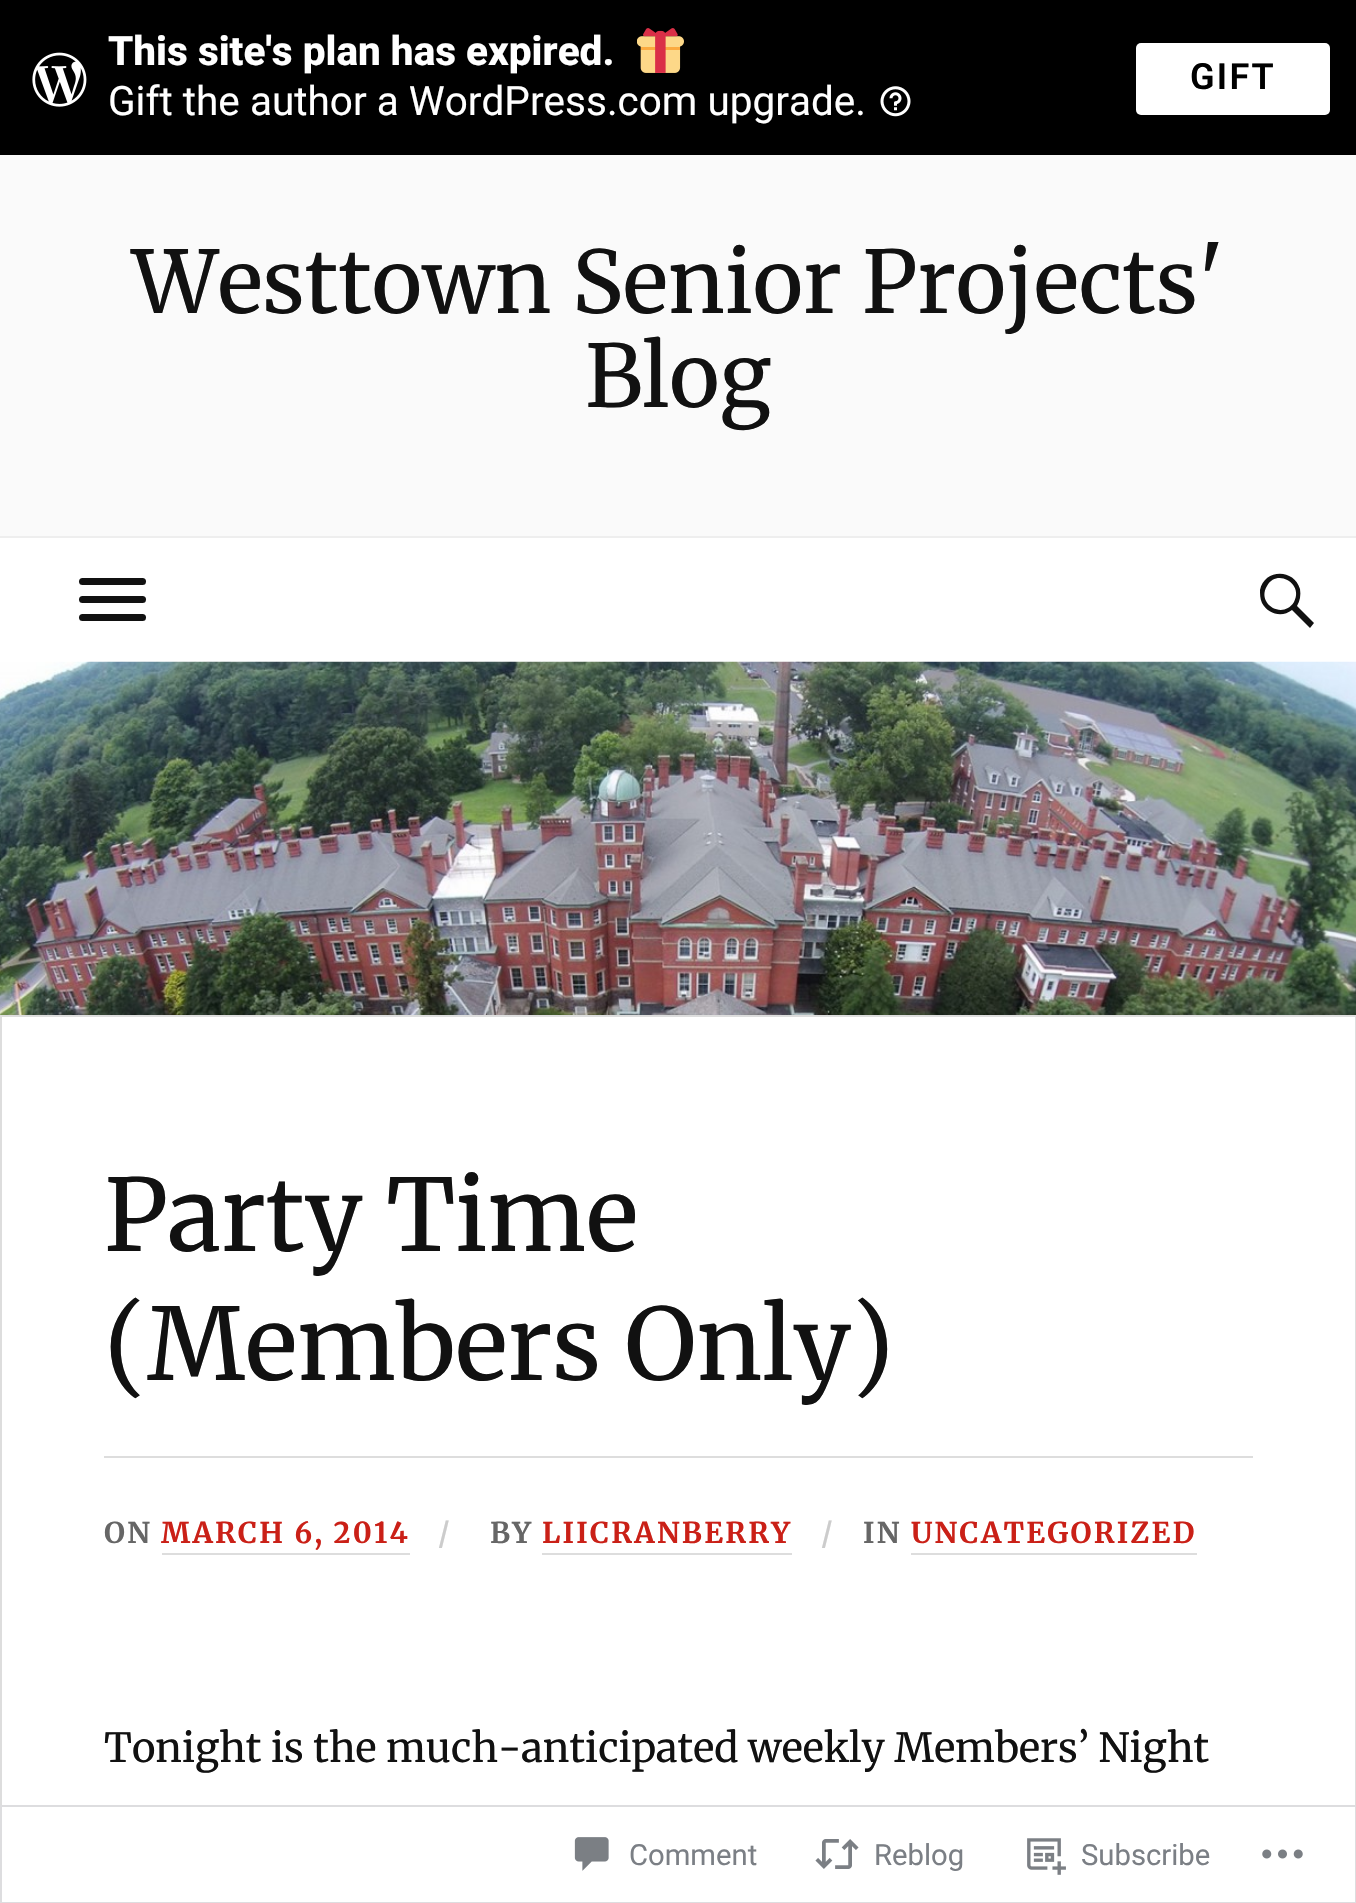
void draw(SkCanvas* c) {
SkPaint p;
p.setAntiAlias(true);
auto F=[&](const char* family, int weight, float size, bool italic = false){SkFontStyle style(weight, SkFontStyle::kNormal_Width,italic ? SkFontStyle::kItalic_Slant : SkFontStyle::kUpright_Slant);SkFont result(fontMgr->matchFamilyStyle(family, style), size);result.setSubpixel(true);return result;};
auto T=[&](const char* s, float x, float y, const SkFont& font){c->drawString(s, x, y, font, p);};
auto L=[&](const char* s, float x, float y, const SkFont& font, const SkPaint& ink, float letter, float word){std::vector<SkGlyphID> glyphs(font.countText(s, strlen(s), SkTextEncoding::kUTF8));std::vector<float> xs(glyphs.size());font.textToGlyphs(s, strlen(s), SkTextEncoding::kUTF8, glyphs);font.getXPos(glyphs, xs, x);float extra = 0;for (size_t i = 0; i < glyphs.size(); i++) {xs[i] += extra;extra += letter + word * (glyphs[i] == font.unicharToGlyph(' '));}c->drawTextBlob(SkTextBlob::MakeFromPosHGlyphs(glyphs, xs, y, font), 0, 0, ink);};
auto R=[&](float x, float y, float w, float h){c->drawRect(SkRect::MakeXYWH(x, y, w, h), p);};
auto Q=[&](float x, float y, float w, float h, float radius){c->drawRoundRect(SkRect::MakeXYWH(x, y, w, h), radius, radius, p);};
auto I=[&](const char* path, float x, float y, float w, float h){auto image = SkImages::DeferredFromEncodedData(SkData::MakeFromFileName(path));c->drawImageRect(image, SkRect::MakeXYWH(x, y, w, h), SkSamplingOptions());};
auto P=[&](const char* data, bool evenOdd = false){SkPath result = *SkParsePath::FromSVGString(data);if (evenOdd) result.setFillType(SkPathFillType::kEvenOdd);return result;};
c->clear(0xfffafafa);
p.setColor(0xff000000);
R(0,0,1356,155);
I("1.png",32,52,55,55);
auto f1 = F("Roboto",800,40.5);
p.setColor(0xffffffff);
T("This site's plan has expired.",108,65,f1);
I("2.png",637,28,47,45);
auto f2 = F("Roboto",400,40.5);
T("Gift the author a WordPress.com upgrade.",108,115,f2);
I("3.png",880,86,31,31);
Q(1136,43,194,72,5);
auto f3 = F("Roboto",600,36);
p.setColor(0xff000000);
L("GIFT",1190,89,f3,p,2.25,0);
auto f4 = F("Merriweather",400,86);
p.setColor(0xff111111);
T("Westtown Senior Projects'",132,313,f4);
T("Blog",585,407,f4);
p.setColor(0xffffffff);
R(0,538,1356,124);
p.setColor(0xffeeeeee);
R(0,536,1356,2);
p.setColor(0xff111111);
Q(79,578,67,7,3.5);
Q(79,596,67,7,3.5);
Q(79,614,67,7,3.5);
c->drawPath(P("M1314 623l-4 5l-18-18c-10 8-24 4-30-7c-2-4-2-9-2-13c4-21 34-22 40-1c1 6 0 12-3 17zm-47-37c-11 18 16 34 27 16c10-18-17-34-27-16z"),p);
I("4.png",0,661,1356,354);
p.setColor(0xffffffff);
R(2,1017,1353,886);
p.setColor(0xffdddddd);
R(0,1015,1356,2);
R(1355,1015,1,888);
R(0,1015,2,888);
auto f5 = F("Merriweather",400,99.5);
p.setColor(0xff111111);
T("Party Time",104,1251,f5);
T("(Members Only)",104,1380,f5);
p.setColor(0xffdddddd);
R(104,1456,1149,2);
auto f6 = F("Merriweather",700,28.75);
p.setColor(0xff666666);
L("ON",104,1543,f6,p,2.25,0);
p.setColor(0xffca2017);
L("MARCH 6, 2014",161,1543,f6,p,2.25,0);
p.setColor(0xffdddddd);
R(162,1553,248,2);
p.setColor(0xffcccccc);
L("/",438,1543,f6,p,2.25,0);
p.setColor(0xff666666);
L("BY",490,1543,f6,p,2.25,0);
p.setColor(0xffca2017);
L("LIICRANBERRY",542,1543,f6,p,2.25,0);
p.setColor(0xffdddddd);
R(542,1553,250,2);
p.setColor(0xffcccccc);
L("/",821,1543,f6,p,2.25,0);
p.setColor(0xff666666);
L("IN",863,1543,f6,p,2.25,0);
p.setColor(0xffca2017);
L("UNCATEGORIZED",911,1543,f6,p,2.25,0);
p.setColor(0xffdddddd);
R(911,1553,286,2);
auto f7 = F("Merriweather",400,40.15);
p.setColor(0xff111111);
T("Tonight is the much-anticipated weekly Members’ Night",104,1762,f7);
p.setColor(0xfaffffff);
R(0,1805,1356,98);
p.setStroke(true);
p.setStrokeWidth(2);
p.setColor(0xfadcdcde);
c->drawRect(SkRect::MakeXYWH(1,1806,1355,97),p);
I("5.png",574,1837,35,34);
auto f8 = F("Roboto",400,29.25);
p.setStroke(false);
p.setColor(0xff7b7f85);
T("Comment",629,1865,f8);
I("6.png",815,1839,44,30);
T("Reblog",874,1865,f8);
I("7.png",1027,1838,39,37);
T("Subscribe",1081,1865,f8);
I("8.png",1262,1849,41,10);
}
